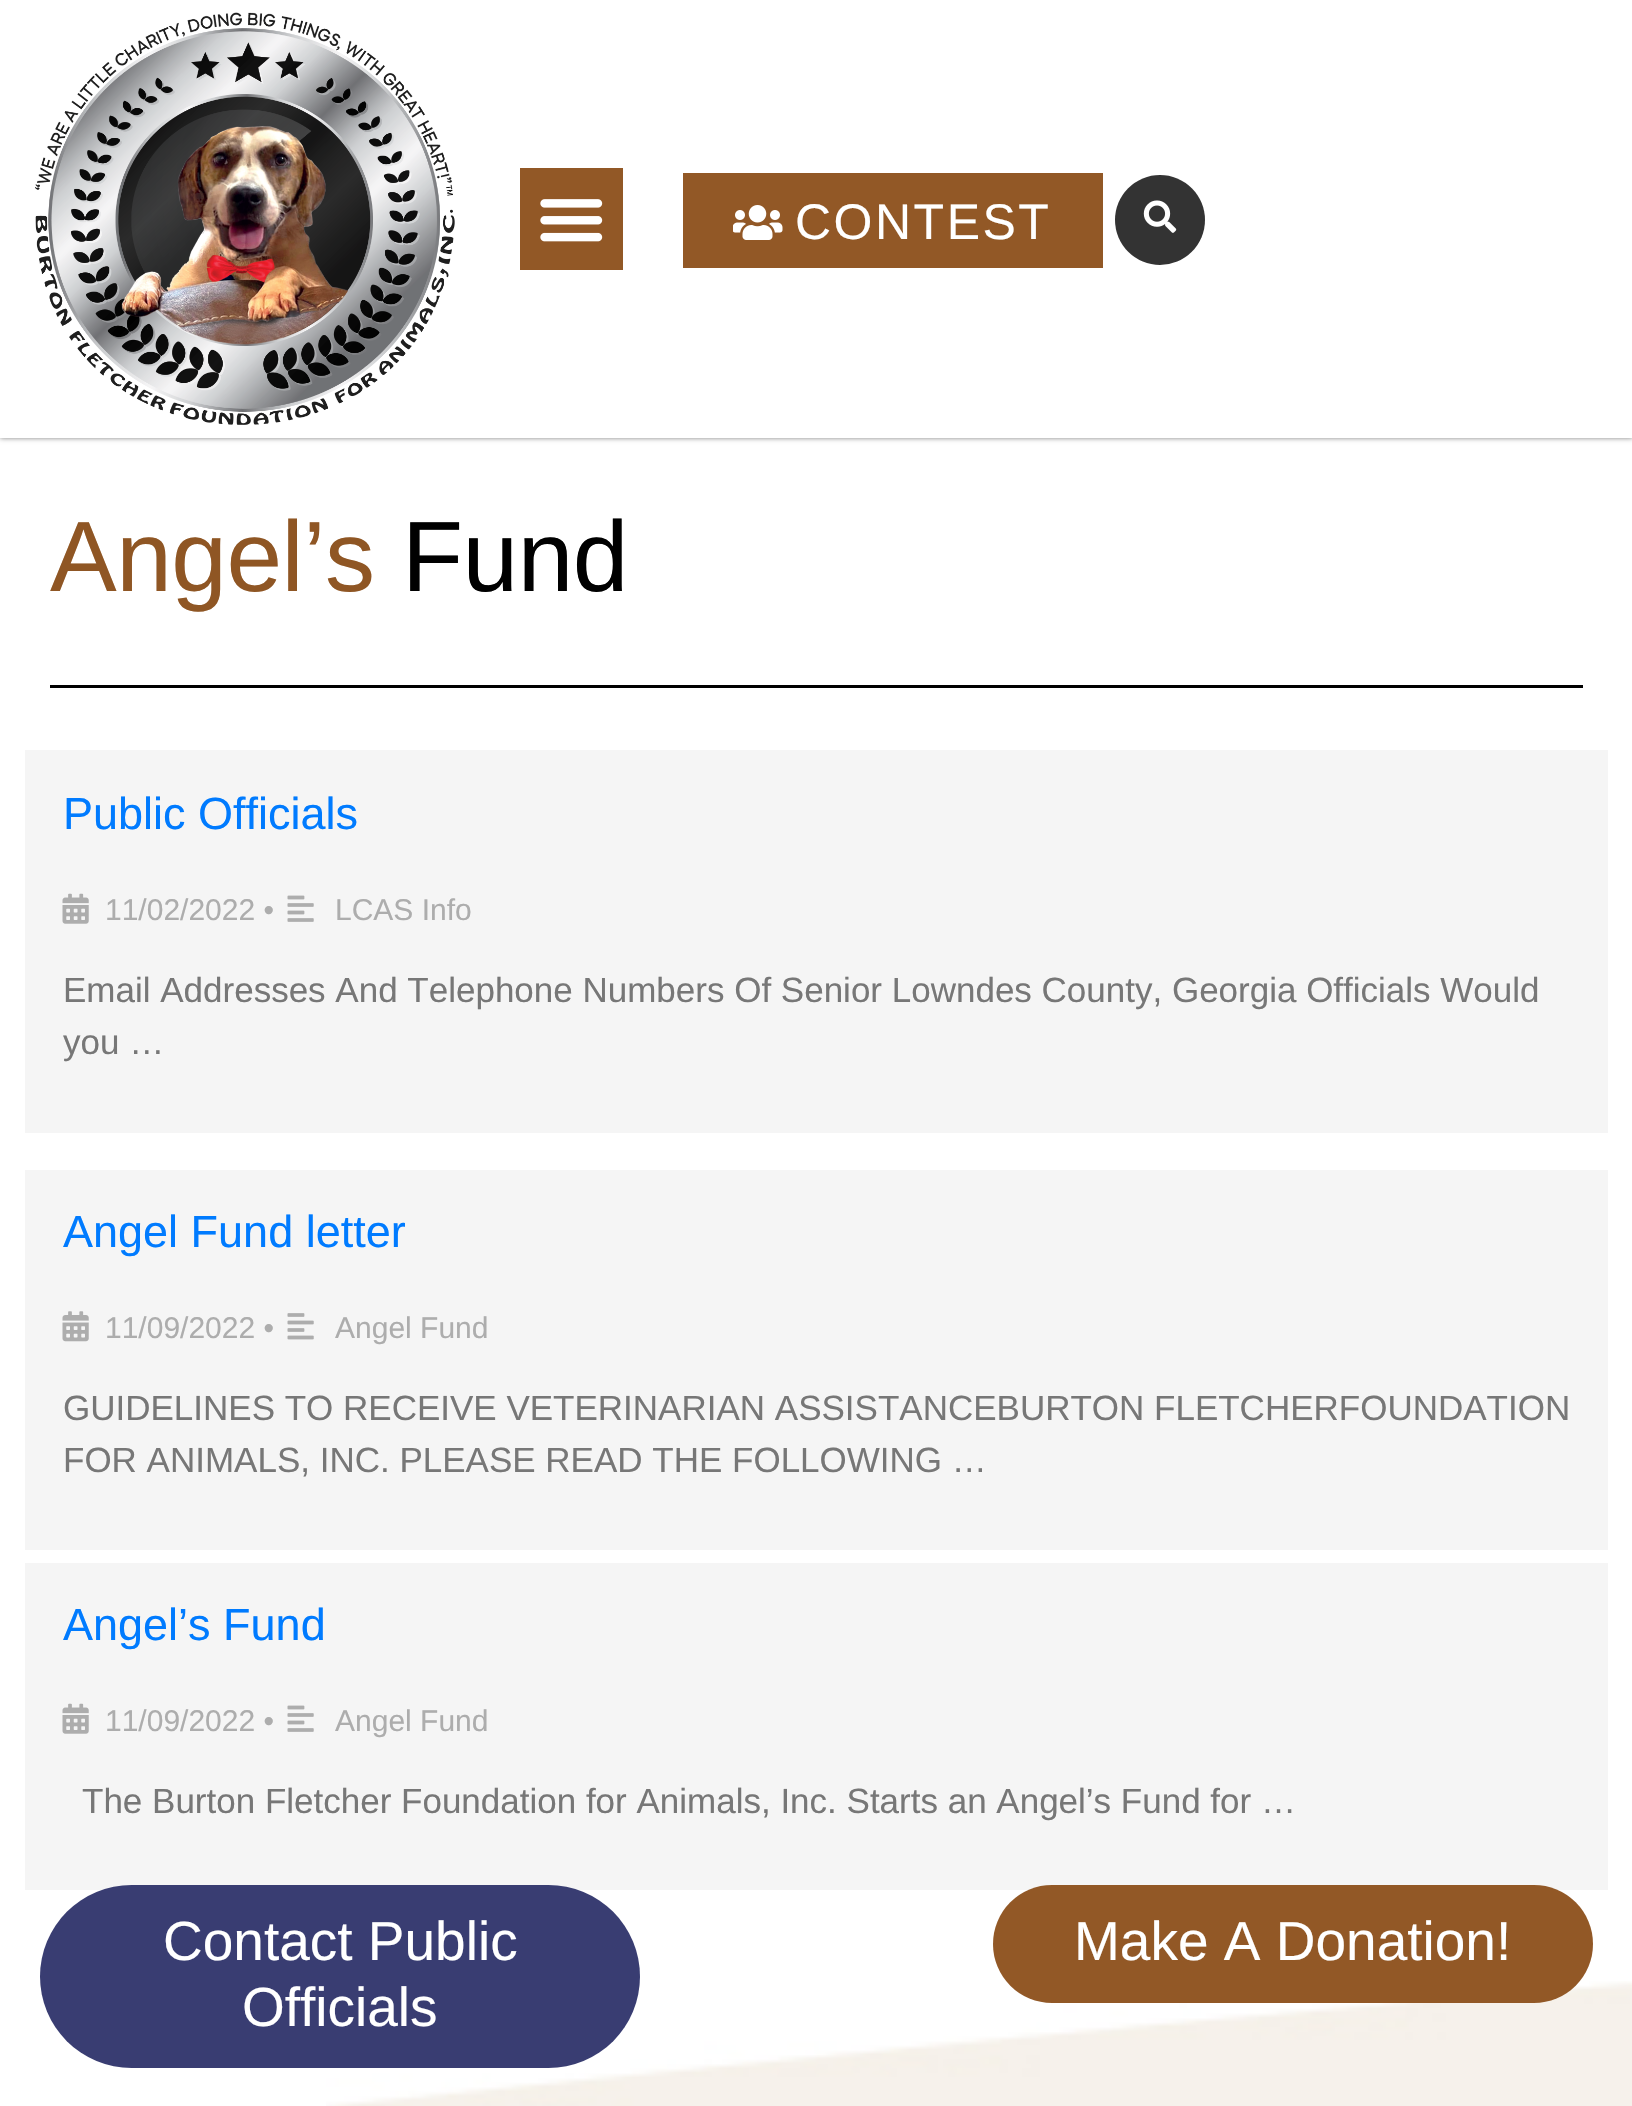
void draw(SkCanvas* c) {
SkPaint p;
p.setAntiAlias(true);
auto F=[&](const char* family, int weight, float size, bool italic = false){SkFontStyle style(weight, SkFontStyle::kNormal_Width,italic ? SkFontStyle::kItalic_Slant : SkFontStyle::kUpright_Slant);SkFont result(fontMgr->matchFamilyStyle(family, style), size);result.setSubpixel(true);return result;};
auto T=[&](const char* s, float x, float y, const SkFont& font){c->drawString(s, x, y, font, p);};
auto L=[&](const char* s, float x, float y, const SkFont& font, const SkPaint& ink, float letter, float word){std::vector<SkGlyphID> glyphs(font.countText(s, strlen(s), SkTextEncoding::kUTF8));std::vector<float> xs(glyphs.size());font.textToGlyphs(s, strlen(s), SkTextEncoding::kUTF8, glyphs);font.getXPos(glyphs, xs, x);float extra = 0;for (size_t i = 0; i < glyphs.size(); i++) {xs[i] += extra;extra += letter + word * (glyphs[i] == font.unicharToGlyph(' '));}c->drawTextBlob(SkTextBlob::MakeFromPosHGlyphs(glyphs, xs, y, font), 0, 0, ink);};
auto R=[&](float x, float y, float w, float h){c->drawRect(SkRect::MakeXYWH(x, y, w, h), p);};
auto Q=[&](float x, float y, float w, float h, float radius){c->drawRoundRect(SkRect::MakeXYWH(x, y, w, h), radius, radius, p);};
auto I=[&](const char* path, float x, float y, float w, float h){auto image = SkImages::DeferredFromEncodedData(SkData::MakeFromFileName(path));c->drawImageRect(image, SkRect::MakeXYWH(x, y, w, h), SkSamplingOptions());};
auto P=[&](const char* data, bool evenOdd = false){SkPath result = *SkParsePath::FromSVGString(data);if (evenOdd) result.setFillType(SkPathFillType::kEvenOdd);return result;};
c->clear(0xffffffff);
c->save();
c->clipPath(P("M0 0h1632v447h-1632zm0 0h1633v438h-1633z",true),true);
p.setColor(0x80000000);
p.setMaskFilter(SkMaskFilter::MakeBlur(kNormal_SkBlurStyle, 2.5));
c->drawRect(SkRect::MakeXYWH(0,0,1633,438),p);
p.setMaskFilter(nullptr);
c->restore();
I("1.png",35,12,420,413);
p.setColor(0xff925826);
R(520,168,103,102);
I("2.png",540,199,63,43);
R(683,173,420,95);
I("3.png",733,205,50,35);
auto f1 = F("Liberation Sans",400,50);
p.setColor(0xffffffff);
L("CONTEST",795,239,f1,p,2.5,0);
p.setColor(0xff333333);
c->drawCircle(1160,220,45,p);
I("4.png",1143,200,34,33);
auto f2 = F("Liberation Sans",400,100);
p.setColor(0xff8f5624);
L("Angel’s",50,591,f2,p,-.5,0);
p.setColor(0xff000000);
L("Fund",402,591,f2,p,-.5,0);
R(50,685,1533,3);
p.setColor(0xfff5f5f5);
R(25,750,1583,383);
auto f3 = F("Liberation Sans",400,45);
p.setColor(0xff007bff);
T("Public Officials",63,829,f3);
I("5.png",62,893,27,31);
auto f4 = F("Liberation Sans",400,30);
p.setColor(0xffadadad);
T("11/02/2022 •",105,920,f4);
I("6.png",287,895,27,27);
T("LCAS Info",335,920,f4);
auto f5 = F("Liberation Sans",400,35);
p.setColor(0xff777777);
T("Email Addresses And Telephone Numbers Of Senior Lowndes County, Georgia Officials Would",63,1002,f5);
T("you …",63,1054,f5);
p.setColor(0xfff5f5f5);
R(25,1170,1583,380);
p.setColor(0xff007bff);
T("Angel Fund letter",63,1247,f3);
I("7.png",62,1311,27,31);
p.setColor(0xffadadad);
T("11/09/2022 •",105,1338,f4);
I("8.png",287,1313,27,27);
T("Angel Fund",335,1338,f4);
p.setColor(0xff777777);
T("GUIDELINES TO RECEIVE VETERINARIAN ASSISTANCEBURTON FLETCHERFOUNDATION",63,1420,f5);
T("FOR ANIMALS, INC. PLEASE READ THE FOLLOWING …",63,1472,f5);
p.setColor(0xfff5f5f5);
R(25,1563,1583,327);
p.setColor(0xff007bff);
T("Angel’s Fund",63,1640,f3);
I("5.png",62,1703,27,31);
p.setColor(0xffadadad);
T("11/09/2022 •",105,1731,f4);
I("6.png",287,1705,27,27);
T("Angel Fund",335,1731,f4);
p.setColor(0xff777777);
T("The Burton Fletcher Foundation for Animals, Inc. Starts an Angel’s Fund for …",82,1813,f5);
I("9.png",326,1981,1306,125);
p.setColor(0xff393d72);
Q(40,1885,600,183,91.5);
auto f6 = F("Liberation Sans",400,55);
p.setColor(0xffffffff);
T("Contact Public",163,1960,f6);
T("Officials",242,2026,f6);
p.setColor(0xff925826);
Q(993,1885,600,118,59);
p.setColor(0xffffffff);
T("Make A Donation!",1074,1960,f6);
}
